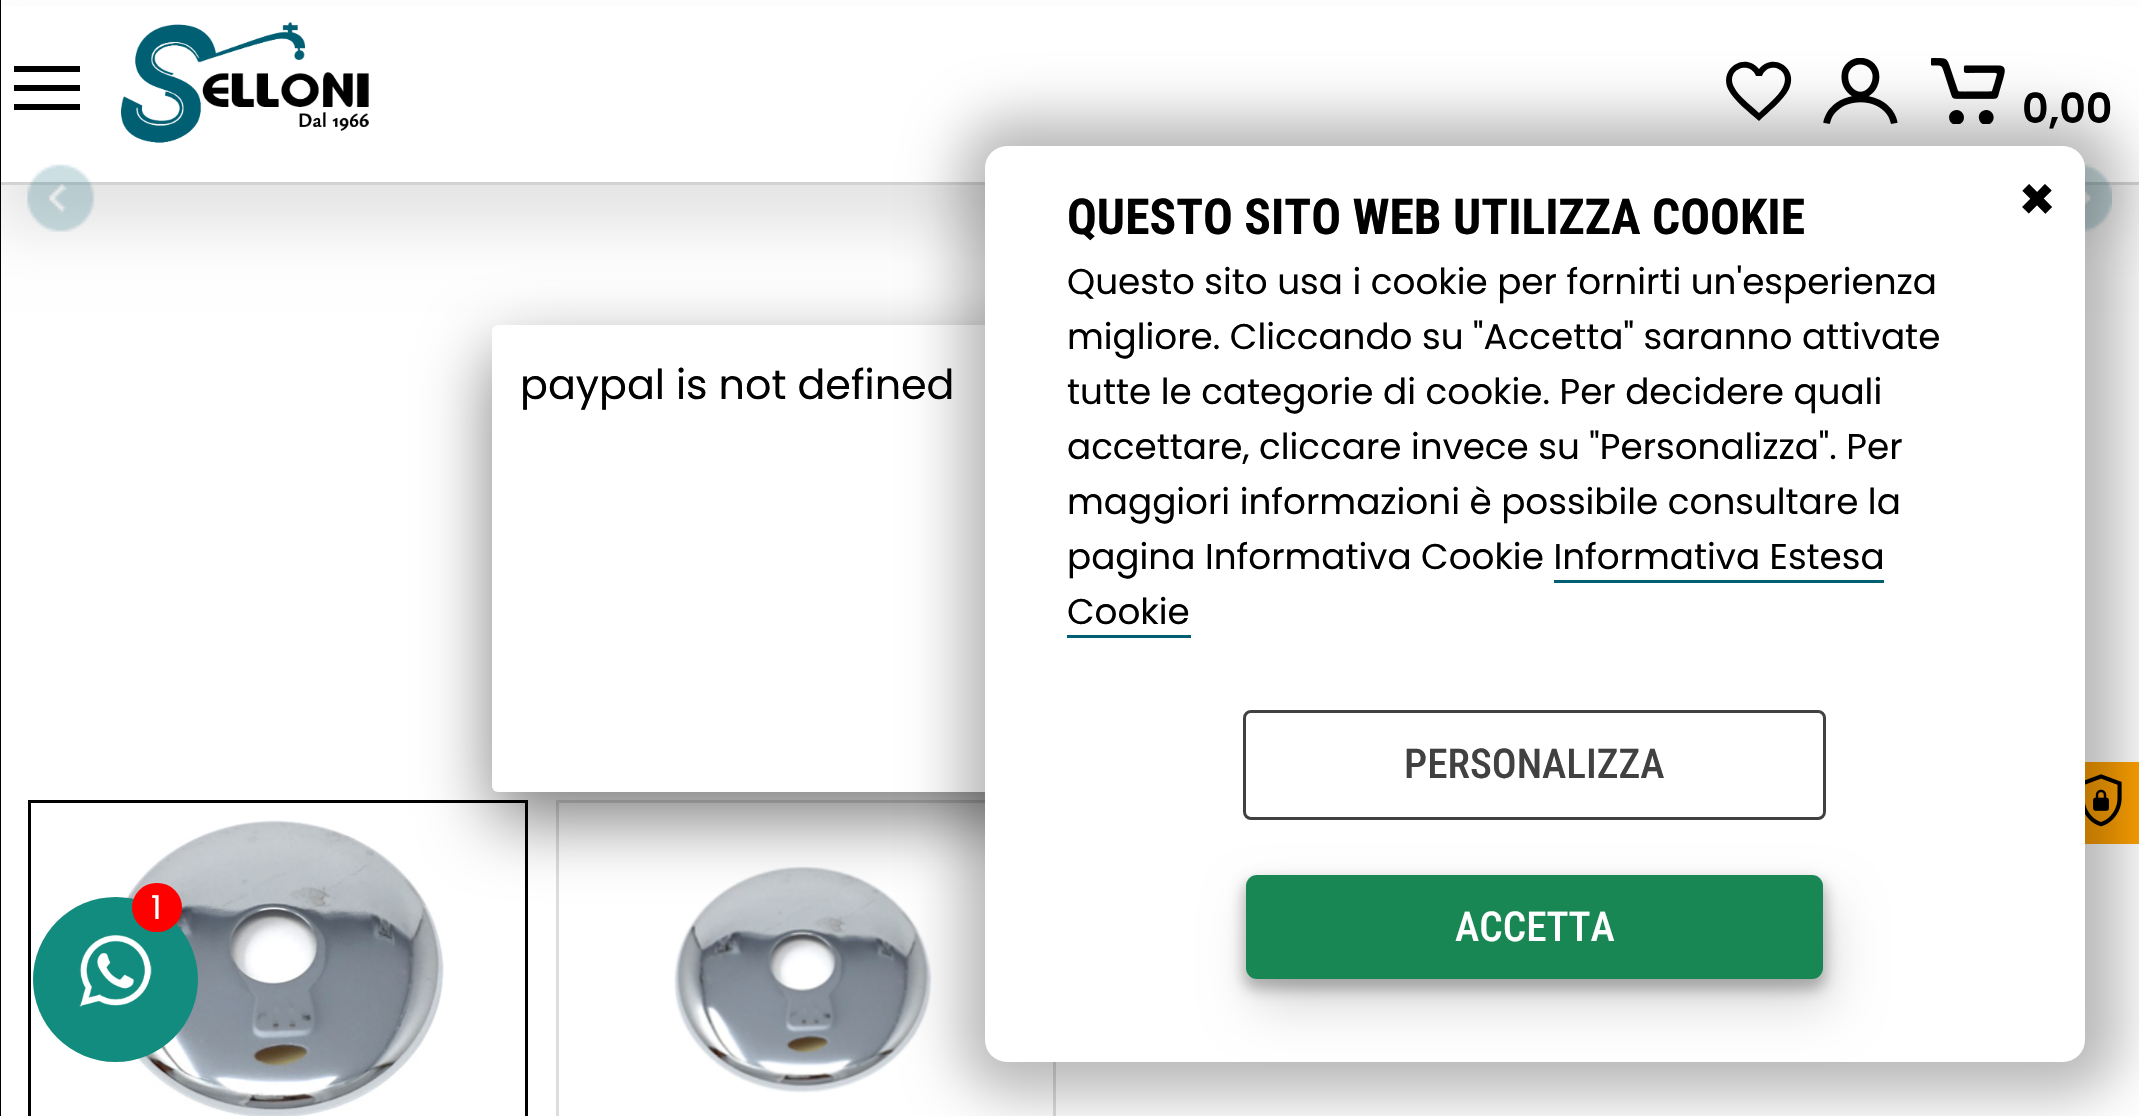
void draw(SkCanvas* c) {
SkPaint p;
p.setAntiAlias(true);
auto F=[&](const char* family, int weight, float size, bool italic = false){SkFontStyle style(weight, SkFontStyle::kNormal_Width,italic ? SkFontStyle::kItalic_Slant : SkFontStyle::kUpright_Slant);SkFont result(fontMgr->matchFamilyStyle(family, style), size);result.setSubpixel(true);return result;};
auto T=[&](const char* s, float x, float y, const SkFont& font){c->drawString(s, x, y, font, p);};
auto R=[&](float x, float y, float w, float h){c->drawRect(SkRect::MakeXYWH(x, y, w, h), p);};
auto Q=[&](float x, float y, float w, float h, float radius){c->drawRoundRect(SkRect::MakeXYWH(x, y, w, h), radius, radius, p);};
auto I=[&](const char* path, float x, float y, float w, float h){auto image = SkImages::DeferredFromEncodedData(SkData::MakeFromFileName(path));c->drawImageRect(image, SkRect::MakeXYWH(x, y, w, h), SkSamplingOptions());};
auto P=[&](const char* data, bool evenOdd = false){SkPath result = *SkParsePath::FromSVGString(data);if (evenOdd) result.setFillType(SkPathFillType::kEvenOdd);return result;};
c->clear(0xffffffff);
I("6.png",614,185,371,140);
p.setColor(0x1a000000);
p.setMaskFilter(SkMaskFilter::MakeBlur(kNormal_SkBlurStyle, 27.5));
c->drawRect(SkRect::MakeXYWH(-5,41,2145,190),p);
p.setMaskFilter(nullptr);
p.setColor(0xffd3d3d3);
R(0,182,2139,3);
p.setColor(0xff000000);
R(0,0,1,1116);
p.setColor(0xffffffff);
R(1,6,2138,176);
p.setColor(0xff000000);
c->drawPath(P("M14 110v-6h66v6zm0-19v-6h66v6zm0-19v-6h66v6z"),p);
I("1.png",121,22,248,121);
c->drawPath(P("M1759 121c-10-9-25-20-31-32c-9-21 17-37 31-20c14-17 40-1 30 20c-6 12-21 23-30 32zm0-8c8-8 19-16 24-26c9-18-15-27-21-11h-6c-6-16-31-7-22 11c5 10 17 18 25 26zm0-23z"),p);
I("2.png",1823,58,75,66);
I("3.png",1931,58,74,66);
auto f1 = F("Poppins",600,41.25);
T("0,00",2022,123,f1);
I("4.png",27,164,68,68);
I("5.png",2084,164,28,68);
p.setStroke(true);
p.setStrokeWidth(3);
p.setColor(0xffdddddd);
c->drawRect(SkRect::MakeXYWH(557.5,801.5,497,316),p);
I("8.png",674,866,258,227);
p.setColor(0xff000000);
c->drawRect(SkRect::MakeXYWH(29.5,801.5,497,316),p);
I("7.png",105,820,339,296);
p.setStroke(false);
p.setColor(0x80000000);
p.setMaskFilter(SkMaskFilter::MakeBlur(kNormal_SkBlurStyle, 34.5));
c->drawRoundRect(SkRect::MakeXYWH(492,352,1155,468),6,6,p);
p.setMaskFilter(nullptr);
p.setColor(0xffffffff);
Q(492,325,1155,467,6);
p.setColor(0xffffa102);
R(2085,762,54,82);
I("9.png",2085,774,37,53);
p.setColor(0x47000000);
p.setMaskFilter(SkMaskFilter::MakeBlur(kNormal_SkBlurStyle, 27.5));
c->drawRoundRect(SkRect::MakeXYWH(960,118,1160,977),52,52,p);
p.setMaskFilter(nullptr);
p.setColor(0xffffffff);
Q(985,146,1100,916,22);
auto f2 = F("Roboto Condensed",700,49.5);
p.setColor(0xff000000);
T("QUESTO SITO WEB UTILIZZA COOKIE",1067,234,f2);
auto f3 = F("Poppins",400,35.75);
T("Questo sito usa i cookie per fornirti un'esperienza",1067,294,f3);
T("migliore. Cliccando su \"Accetta\" saranno attivate",1067,349,f3);
T("tutte le categorie di cookie. Per decidere quali",1067,404,f3);
T("accettare, cliccare invece su \"Personalizza\". Per",1067,459,f3);
T("maggiori informazioni è possibile consultare la",1067,514,f3);
T("pagina Informativa Cookie Informativa Estesa",1067,569,f3);
T("Cookie",1067,624,f3);
p.setColor(0xff005f73);
R(1554,580,330,3);
R(1067,635,124,3);
auto f4 = F("Poppins",700,60);
p.setColor(0xff000000);
T("×",2018,220,f4);
p.setStroke(true);
p.setColor(0xff424141);
c->drawRoundRect(SkRect::MakeXYWH(1244.5,711.5,580,107),6.5,6.5,p);
auto f5 = F("Roboto Condensed",500,41.25);
p.setStroke(false);
T("PERSONALIZZA",1404,778,f5);
p.setColor(0x40000000);
p.setMaskFilter(SkMaskFilter::MakeBlur(kNormal_SkBlurStyle, 7));
c->drawRoundRect(SkRect::MakeXYWH(1243,880,583,110),14,14,p);
p.setMaskFilter(nullptr);
p.setColor(0x26000000);
p.setMaskFilter(SkMaskFilter::MakeBlur(kNormal_SkBlurStyle, 25));
c->drawRoundRect(SkRect::MakeXYWH(1254,902,578,105),11,11,p);
p.setMaskFilter(nullptr);
p.setColor(0xff198754);
Q(1246,875,577,104,11);
p.setColor(0xffffffff);
T("ACCETTA",1455,941,f5);
auto f6 = F("Poppins",400,41.25);
p.setColor(0xff000000);
T("paypal is not defined",520,399,f6);
p.setColor(0xff128c7e);
c->drawCircle(115.5,979.5,82.5,p);
p.setColor(0xffff0000);
Q(132,883,50,49,24.5);
auto f7 = F("Poppins",400,33);
p.setColor(0xffffffff);
T("1",151,919,f7);
I("10.png",79,935,73,72);
}
